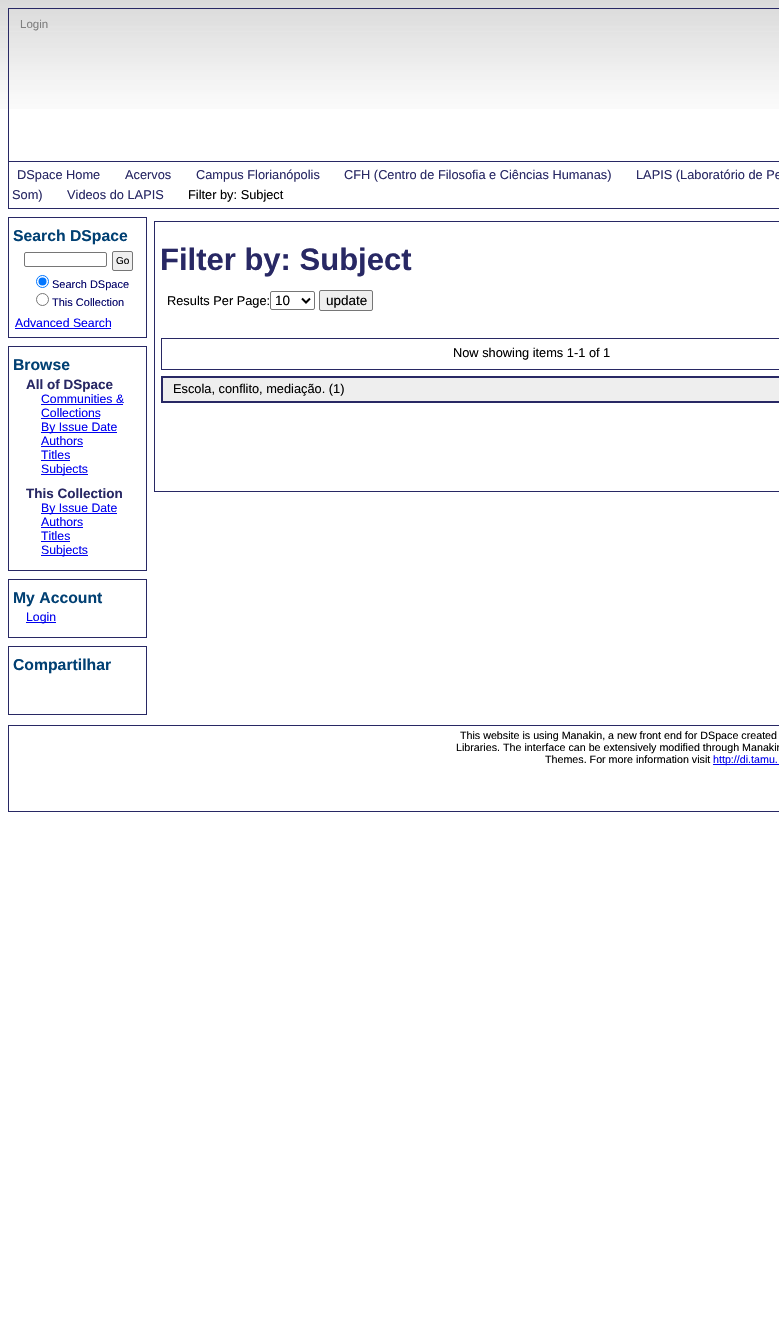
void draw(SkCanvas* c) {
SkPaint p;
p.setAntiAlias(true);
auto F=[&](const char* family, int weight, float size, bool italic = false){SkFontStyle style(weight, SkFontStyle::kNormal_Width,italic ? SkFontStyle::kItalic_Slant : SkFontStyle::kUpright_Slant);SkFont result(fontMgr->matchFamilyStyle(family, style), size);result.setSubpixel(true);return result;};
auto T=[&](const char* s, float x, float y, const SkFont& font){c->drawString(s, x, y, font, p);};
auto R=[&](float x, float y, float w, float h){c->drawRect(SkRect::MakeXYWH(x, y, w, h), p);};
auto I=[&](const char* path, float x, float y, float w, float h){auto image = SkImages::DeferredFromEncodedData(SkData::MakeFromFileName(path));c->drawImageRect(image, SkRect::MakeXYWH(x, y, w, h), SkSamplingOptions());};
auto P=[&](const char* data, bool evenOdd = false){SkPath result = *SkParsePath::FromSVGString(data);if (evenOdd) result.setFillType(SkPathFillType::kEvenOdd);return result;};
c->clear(0xffffffff);
I("1.png",0,0,779,109);
p.setStroke(true);
p.setStrokeWidth(1);
p.setColor(0xff282864);
c->drawRect(SkRect::MakeXYWH(8.5,8.5,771,200),p);
auto f1 = F("Liberation Sans",400,11.5);
p.setStroke(false);
p.setColor(0xff808080);
T("Login",20,28,f1);
p.setColor(0xff282864);
R(9,161,770,1);
auto f2 = F("Liberation Sans",400,12.8);
T("DSpace Home",17,179,f2);
T("Acervos",125,179,f2);
T("Campus Florianópolis",196,179,f2);
T("CFH (Centro de Filosofia e Ciências Humanas)",344,179,f2);
T("LAPIS (Laboratório de Pe",636,179,f2);
T("Som)",12,199,f2);
T("Videos do LAPIS",67,199,f2);
p.setColor(0xff000000);
T("Filter by: Subject",188,199,f2);
p.setStroke(true);
p.setColor(0xff282864);
c->drawRect(SkRect::MakeXYWH(8.5,217.5,138,120),p);
auto f3 = F("Liberation Sans",700,15.75);
p.setStroke(false);
p.setColor(0xff014073);
T("Search DSpace",13,241,f3);
p.setStroke(true);
p.setColor(0xff767676);
c->drawRoundRect(SkRect::MakeXYWH(24.5,252.5,82,14),1.5,1.5,p);
p.setStroke(false);
p.setColor(0xffefefef);
c->drawRoundRect(SkRect::MakeXYWH(112.5,251.5,20,19),1.5,1.5,p);
p.setStroke(true);
p.setColor(0xff767676);
c->drawRoundRect(SkRect::MakeXYWH(112.5,251.5,20,19),1.5,1.5,p);
auto f4 = F("Liberation Sans",400,10);
p.setStroke(false);
p.setColor(0xff000000);
T("Go",116,264,f4);
p.setStroke(true);
p.setColor(0xff0075ff);
c->drawCircle(42.5,281.5,6,p);
p.setStroke(false);
c->drawCircle(42.5,281.5,4,p);
auto f5 = F("Liberation Sans",400,11);
p.setColor(0xff000066);
T("Search DSpace",52,288,f5);
p.setStroke(true);
p.setColor(0xff767676);
c->drawCircle(42.5,299.5,6,p);
p.setStroke(false);
p.setColor(0xff000066);
T("This Collection",52,306,f5);
auto f6 = F("Liberation Sans",400,12.25);
p.setColor(0xff0000ee);
T("Advanced Search",15,327,f6);
R(15,328,96,1);
p.setStroke(true);
p.setColor(0xff282864);
c->drawRect(SkRect::MakeXYWH(8.5,346.5,138,224),p);
p.setStroke(false);
p.setColor(0xff014073);
T("Browse",13,370,f3);
auto f7 = F("Liberation Sans",700,13.5);
p.setColor(0xff282864);
T("All of DSpace",26,389,f7);
p.setColor(0xff0000ee);
T("Communities &",41,403,f6);
R(41,404,82,1);
T("Collections",41,417,f6);
R(41,418,59,1);
R(41,432,76,1);
T("By Issue Date",41,431,f6);
T("Authors",41,445,f6);
R(41,446,42,1);
T("Titles",41,459,f6);
R(41,460,29,1);
R(41,474,47,1);
T("Subjects",41,473,f6);
p.setColor(0xff282864);
T("This Collection",26,498,f7);
p.setColor(0xff0000ee);
R(41,513,76,1);
T("By Issue Date",41,512,f6);
T("Authors",41,526,f6);
R(41,527,42,1);
T("Titles",41,540,f6);
R(41,541,29,1);
R(41,555,47,1);
T("Subjects",41,554,f6);
p.setStroke(true);
p.setColor(0xff282864);
c->drawRect(SkRect::MakeXYWH(8.5,579.5,138,58),p);
p.setStroke(false);
p.setColor(0xff014073);
T("My Account",13,603,f3);
p.setColor(0xff0000ee);
R(26,622,30,1);
T("Login",26,621,f6);
p.setStroke(true);
p.setColor(0xff282864);
c->drawRect(SkRect::MakeXYWH(8.5,646.5,138,68),p);
p.setStroke(false);
p.setColor(0xff014073);
T("Compartilhar",13,670,f3);
p.setStroke(true);
p.setColor(0xff282864);
c->drawRect(SkRect::MakeXYWH(154.5,221.5,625,270),p);
auto f8 = F("Liberation Sans",700,31);
p.setStroke(false);
T("Filter by: Subject",160,270,f8);
p.setColor(0xff000000);
T("Results Per Page:",167,305,f2);
p.setStroke(true);
p.setColor(0xff767676);
c->drawRoundRect(SkRect::MakeXYWH(270.5,291.5,44,18),1.5,1.5,p);
p.setStrokeWidth(2);
p.setColor(0xff000000);
c->drawPath(P("M302 298.5l4 4l4-4"),p);
auto f9 = F("Liberation Sans",400,13.5);
p.setStroke(false);
T("10",275,305,f9);
p.setColor(0xffefefef);
c->drawRoundRect(SkRect::MakeXYWH(319.5,290.5,53,20),1.5,1.5,p);
p.setStroke(true);
p.setStrokeWidth(1);
p.setColor(0xff767676);
c->drawRoundRect(SkRect::MakeXYWH(319.5,290.5,53,20),1.5,1.5,p);
p.setStroke(false);
p.setColor(0xff000000);
T("update",326,305,f9);
p.setStroke(true);
p.setColor(0xff282864);
c->drawRect(SkRect::MakeXYWH(161.5,338.5,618,31),p);
p.setStroke(false);
p.setColor(0xff000000);
T("Now showing items 1-1 of 1",453,357,f2);
p.setStroke(true);
p.setStrokeWidth(2);
p.setColor(0xff282864);
c->drawRect(SkRect::MakeXYWH(162,377,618,25),p);
p.setStroke(false);
p.setColor(0xffeeeeee);
R(163,378,616,23);
p.setColor(0xff000000);
T("Escola, conflito, mediação. (1)",173,393,f2);
p.setStroke(true);
p.setStrokeWidth(1);
p.setColor(0xff282864);
c->drawRect(SkRect::MakeXYWH(8.5,725.5,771,86),p);
auto f10 = F("Liberation Sans",400,10.7);
p.setStroke(false);
p.setColor(0xff000000);
T("This website is using Manakin, a new front end for DSpace created",460,739,f10);
T("Libraries. The interface can be extensively modified through Manakin",456,751,f10);
T("Themes. For more information visit",545,763,f10);
p.setColor(0xff0000ee);
R(713,764,66,1);
T("http://di.tamu.",713,763,f10);
}
